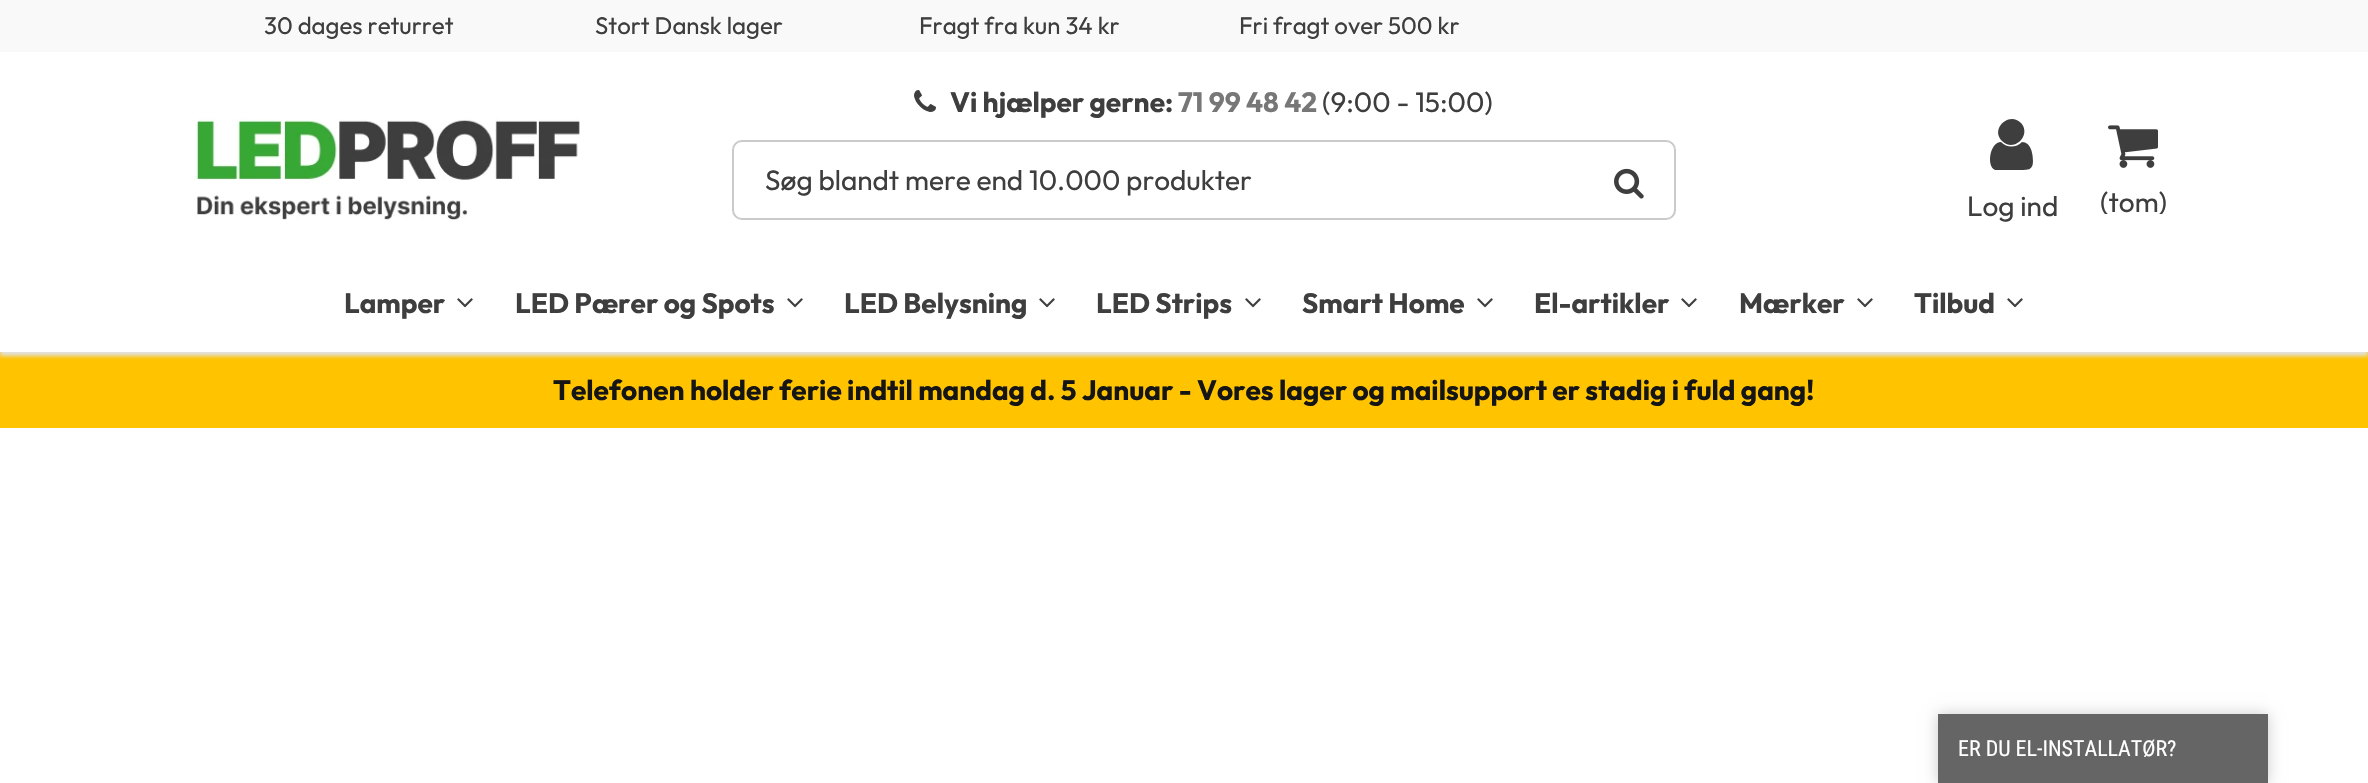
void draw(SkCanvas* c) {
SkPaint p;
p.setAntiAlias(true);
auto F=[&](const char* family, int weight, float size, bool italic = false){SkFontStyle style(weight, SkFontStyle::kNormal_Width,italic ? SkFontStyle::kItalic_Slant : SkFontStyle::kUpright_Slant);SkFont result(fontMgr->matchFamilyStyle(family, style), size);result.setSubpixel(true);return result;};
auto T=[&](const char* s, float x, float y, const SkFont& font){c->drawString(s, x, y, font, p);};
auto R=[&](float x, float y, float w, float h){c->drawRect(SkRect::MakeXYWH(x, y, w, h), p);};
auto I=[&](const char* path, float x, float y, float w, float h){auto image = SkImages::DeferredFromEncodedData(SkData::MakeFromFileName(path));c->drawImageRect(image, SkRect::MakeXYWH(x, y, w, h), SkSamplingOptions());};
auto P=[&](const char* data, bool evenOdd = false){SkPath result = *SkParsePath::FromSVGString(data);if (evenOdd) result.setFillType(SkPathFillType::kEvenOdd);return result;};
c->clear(0xffffffff);
p.setColor(0xfff9f9f9);
R(0,0,2368,52);
auto f1 = F("Outfit",400,24);
p.setColor(0xff3e3e3e);
T("30 dages returret",264,34,f1);
T("Stort Dansk lager",595,34,f1);
T("Fragt fra kun 34 kr",919,34,f1);
T("Fri fragt over 500 kr",1239,34,f1);
I("1.png",194,118,386,102);
I("2.png",914,90,22,22);
auto f2 = F("Outfit",700,28);
T("Vi hjælper gerne:",950,112,f2);
p.setColor(0xff777777);
T("71 99 48 42",1178,112,f2);
auto f3 = F("Outfit",400,28);
p.setColor(0xff3e3e3e);
T("(9:00 - 15:00)",1322,112,f3);
p.setStroke(true);
p.setStrokeWidth(2);
p.setColor(0xffcacaca);
c->drawRoundRect(SkRect::MakeXYWH(733,141,942,78),9,9,p);
p.setStroke(false);
p.setColor(0xff3e3e3e);
T("Søg blandt mere end 10.000 produkter",765,190,f3);
I("3.png",1614,168,30,31);
c->drawPath(P("M2033 161c0 9-5 9-12 9h-26c-9-4-5-28 6-28c6 6 15 6 21 0c9 0 11 12 11 19zm-12-38c11 12-7 30-19 18c-12-12 7-30 19-18z"),p);
T("Log ind",1967,216,f3);
I("4.png",2108,125,50,43);
c->save();
c->clipRect(SkRect::MakeXYWH(2072,112,122,102));
T("(tom)",2100,212,f3);
c->restore();
p.setColor(0xffffc300);
R(0,352,2368,76);
c->save();
c->clipRect(SkRect::MakeXYWH(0,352,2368,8));
p.setColor(0xffe2e2e2);
p.setMaskFilter(SkMaskFilter::MakeBlur(kNormal_SkBlurStyle, 2));
c->drawRect(SkRect::MakeXYWH(0,256,2368,100),p);
p.setMaskFilter(nullptr);
c->restore();
p.setColor(0xff3e3e3e);
T("Lamper",344,313,f2);
I("5.png",457,298,16,10);
T("LED Pærer og Spots",515,313,f2);
I("5.png",787,298,16,10);
T("LED Belysning",844,313,f2);
I("5.png",1039,298,16,10);
T("LED Strips",1096,313,f2);
I("5.png",1245,298,16,10);
T("Smart Home",1302,313,f2);
I("5.png",1477,298,16,10);
T("El-artikler",1534,313,f2);
I("5.png",1681,298,16,10);
T("Mærker",1739,313,f2);
I("5.png",1857,298,16,10);
T("Tilbud",1914,313,f2);
I("5.png",2007,298,16,10);
p.setColor(0xff151515);
T("Telefonen holder ferie indtil mandag d. 5 Januar - Vores lager og mailsupport er stadig i fuld gang!",553,400,f2);
p.setColor(0x33000000);
p.setMaskFilter(SkMaskFilter::MakeBlur(kNormal_SkBlurStyle, 7));
c->drawRect(SkRect::MakeXYWH(1938,714,330,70),p);
p.setMaskFilter(nullptr);
p.setColor(0xff656565);
R(1938,714,330,69);
auto f4 = F("Roboto Condensed",400,22);
p.setColor(0xffffffff);
T("ER DU EL-INSTALLATØR?",1958,756,f4);
}
